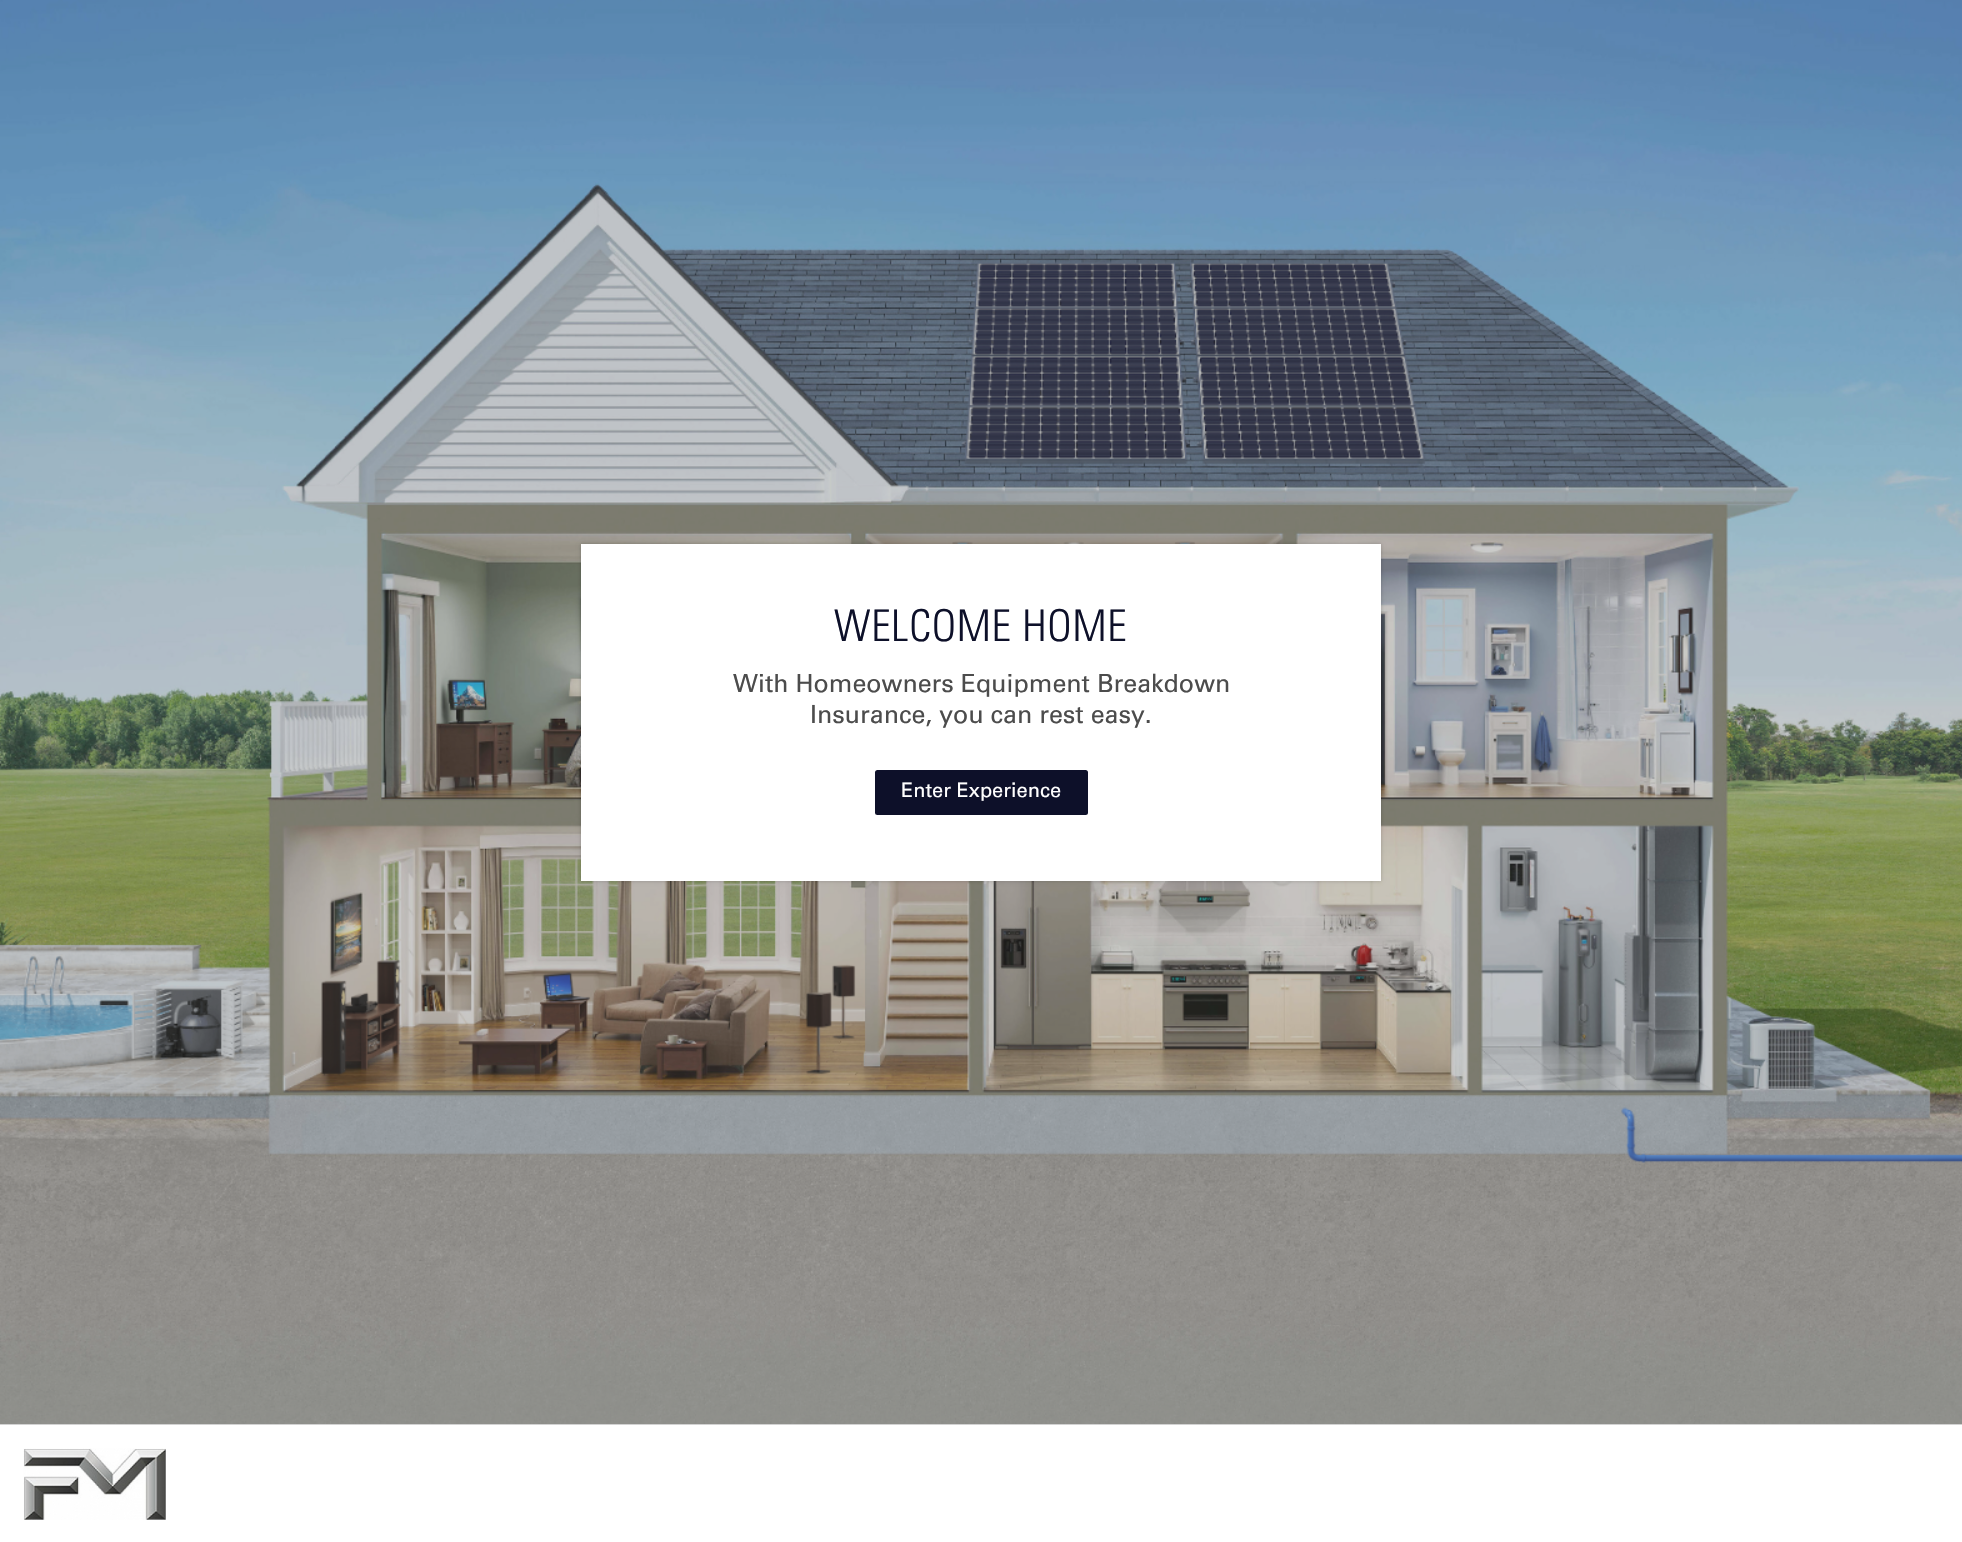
void draw(SkCanvas* c) {
SkPaint p;
p.setAntiAlias(true);
auto F=[&](const char* family, int weight, float size, bool italic = false){SkFontStyle style(weight, SkFontStyle::kNormal_Width,italic ? SkFontStyle::kItalic_Slant : SkFontStyle::kUpright_Slant);SkFont result(fontMgr->matchFamilyStyle(family, style), size);result.setSubpixel(true);return result;};
auto T=[&](const char* s, float x, float y, const SkFont& font){c->drawString(s, x, y, font, p);};
auto L=[&](const char* s, float x, float y, const SkFont& font, const SkPaint& ink, float letter, float word){std::vector<SkGlyphID> glyphs(font.countText(s, strlen(s), SkTextEncoding::kUTF8));std::vector<float> xs(glyphs.size());font.textToGlyphs(s, strlen(s), SkTextEncoding::kUTF8, glyphs);font.getXPos(glyphs, xs, x);float extra = 0;for (size_t i = 0; i < glyphs.size(); i++) {xs[i] += extra;extra += letter + word * (glyphs[i] == font.unicharToGlyph(' '));}c->drawTextBlob(SkTextBlob::MakeFromPosHGlyphs(glyphs, xs, y, font), 0, 0, ink);};
auto R=[&](float x, float y, float w, float h){c->drawRect(SkRect::MakeXYWH(x, y, w, h), p);};
auto Q=[&](float x, float y, float w, float h, float radius){c->drawRoundRect(SkRect::MakeXYWH(x, y, w, h), radius, radius, p);};
auto I=[&](const char* path, float x, float y, float w, float h){auto image = SkImages::DeferredFromEncodedData(SkData::MakeFromFileName(path));c->drawImageRect(image, SkRect::MakeXYWH(x, y, w, h), SkSamplingOptions());};
c->clear(0xffffffff);
I("1.png",0,0,1962,1424);
p.setColor(0x33000000);
p.setMaskFilter(SkMaskFilter::MakeBlur(kNormal_SkBlurStyle, 2));
c->drawRect(SkRect::MakeXYWH(581,544,800,337),p);
p.setMaskFilter(nullptr);
p.setColor(0xffffffff);
R(581,544,800,337);
auto f1 = F("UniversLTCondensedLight",300,43.75);
p.setColor(0xff0d1029);
L("WELCOME HOME",834,641,f1,p,.75,0);
auto f2 = F("Univers",400,25);
p.setColor(0xff4c4c4c);
T("With Homeowners Equipment Breakdown",733,692,f2);
T("Insurance, you can rest easy.",810,723,f2);
p.setColor(0xff0d1029);
Q(875,770,213,45,2.5);
auto f3 = F("Univers",400,20);
p.setColor(0xffffffff);
T("Enter Experience",901,797,f3);
p.setColor(0xffd2d2d2);
R(0,1424,1962,1);
I("2.png",23,1448,143,72);
}
